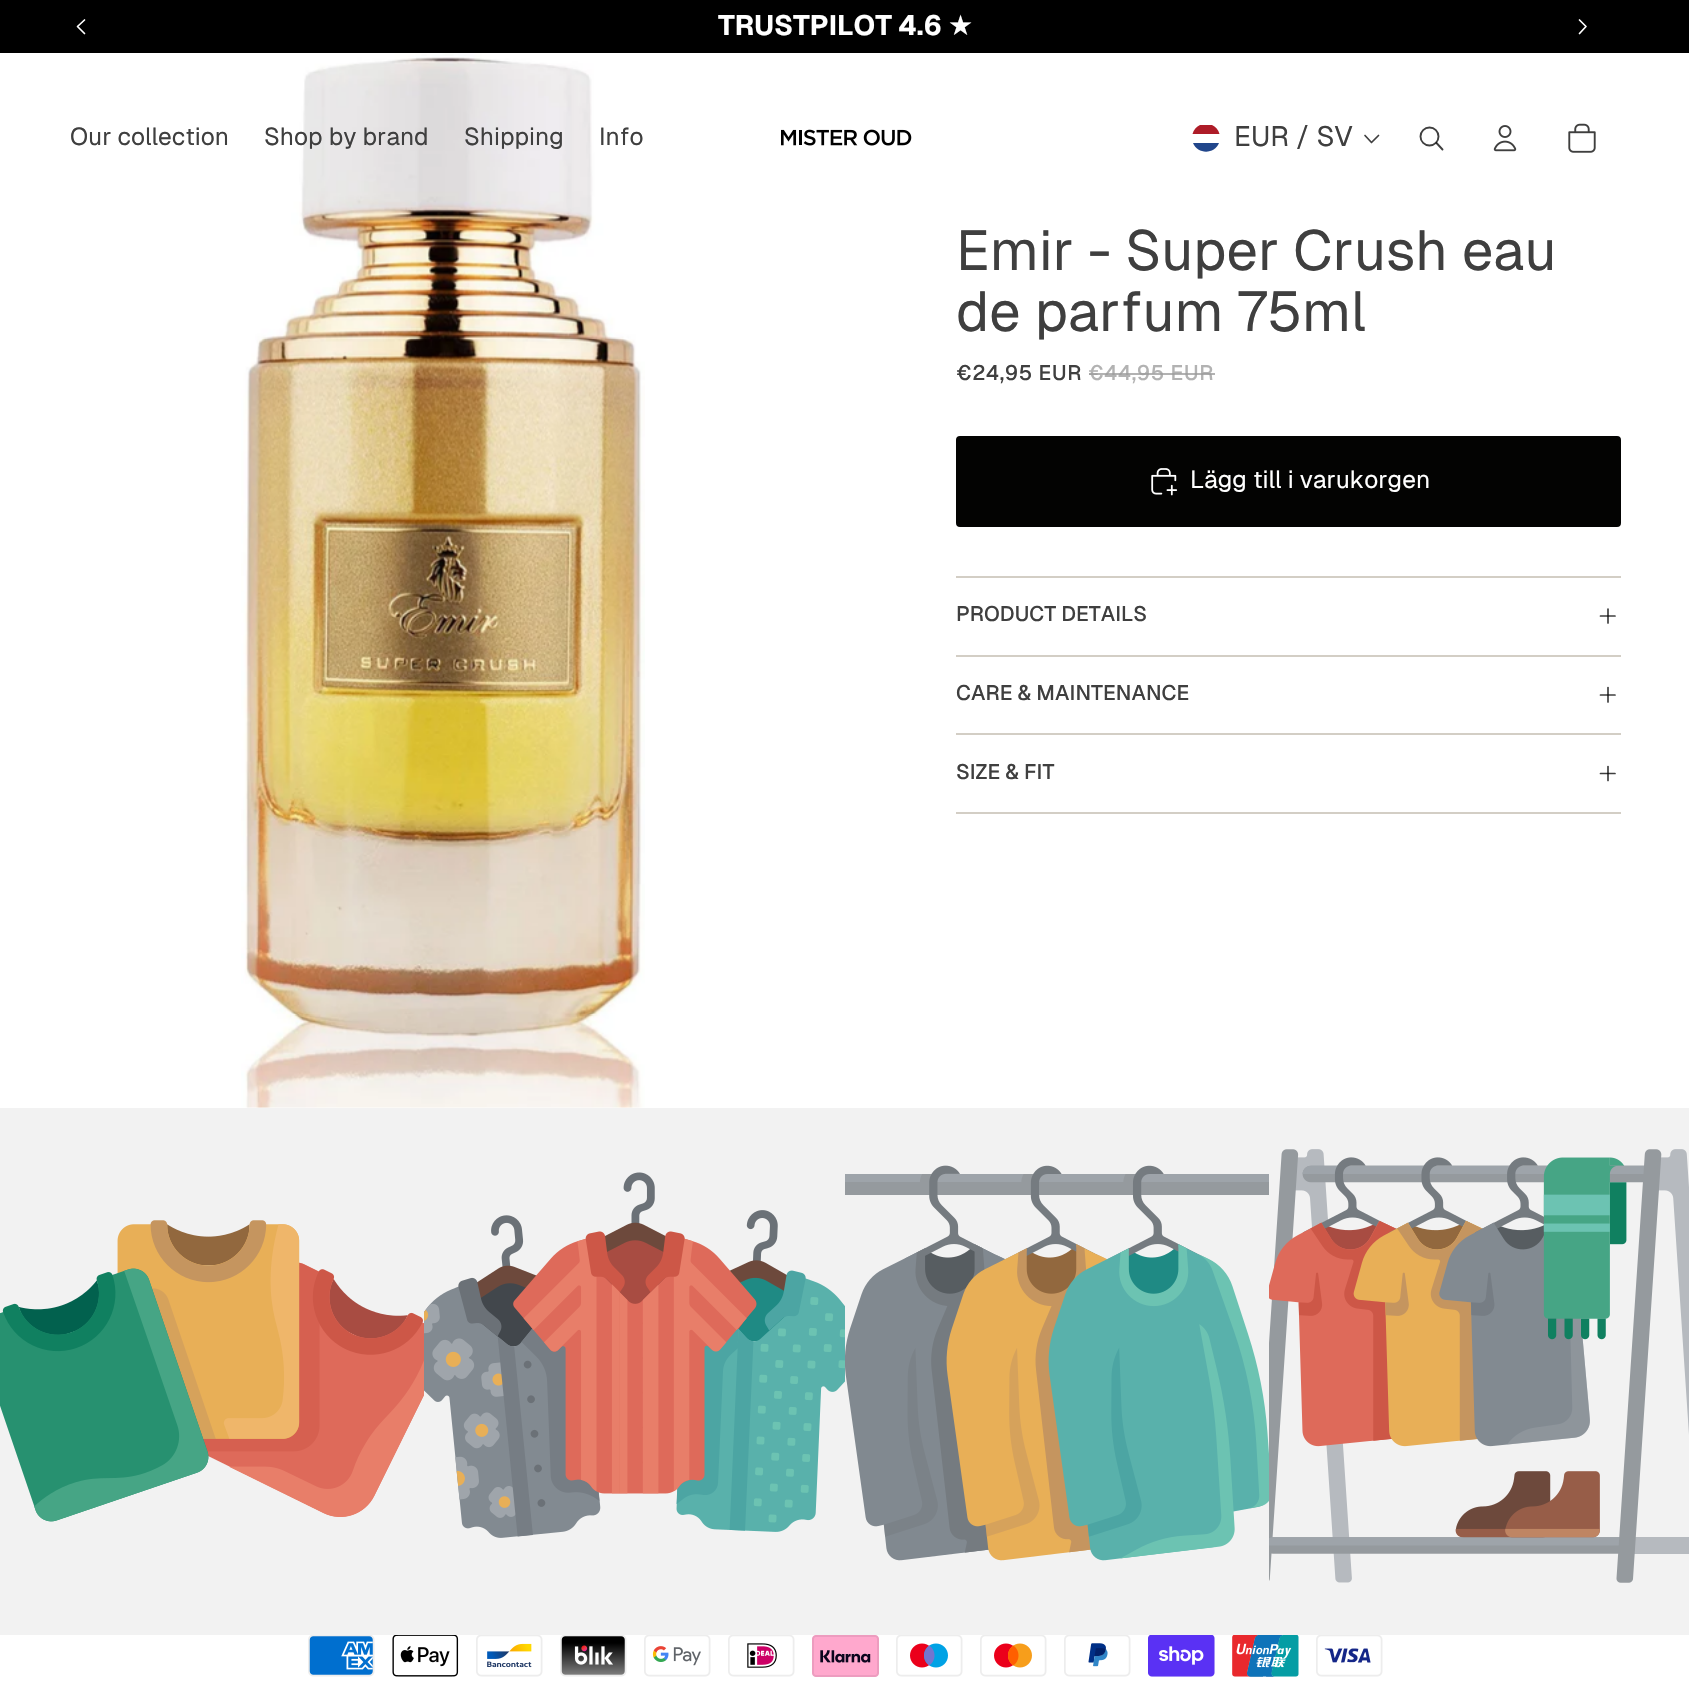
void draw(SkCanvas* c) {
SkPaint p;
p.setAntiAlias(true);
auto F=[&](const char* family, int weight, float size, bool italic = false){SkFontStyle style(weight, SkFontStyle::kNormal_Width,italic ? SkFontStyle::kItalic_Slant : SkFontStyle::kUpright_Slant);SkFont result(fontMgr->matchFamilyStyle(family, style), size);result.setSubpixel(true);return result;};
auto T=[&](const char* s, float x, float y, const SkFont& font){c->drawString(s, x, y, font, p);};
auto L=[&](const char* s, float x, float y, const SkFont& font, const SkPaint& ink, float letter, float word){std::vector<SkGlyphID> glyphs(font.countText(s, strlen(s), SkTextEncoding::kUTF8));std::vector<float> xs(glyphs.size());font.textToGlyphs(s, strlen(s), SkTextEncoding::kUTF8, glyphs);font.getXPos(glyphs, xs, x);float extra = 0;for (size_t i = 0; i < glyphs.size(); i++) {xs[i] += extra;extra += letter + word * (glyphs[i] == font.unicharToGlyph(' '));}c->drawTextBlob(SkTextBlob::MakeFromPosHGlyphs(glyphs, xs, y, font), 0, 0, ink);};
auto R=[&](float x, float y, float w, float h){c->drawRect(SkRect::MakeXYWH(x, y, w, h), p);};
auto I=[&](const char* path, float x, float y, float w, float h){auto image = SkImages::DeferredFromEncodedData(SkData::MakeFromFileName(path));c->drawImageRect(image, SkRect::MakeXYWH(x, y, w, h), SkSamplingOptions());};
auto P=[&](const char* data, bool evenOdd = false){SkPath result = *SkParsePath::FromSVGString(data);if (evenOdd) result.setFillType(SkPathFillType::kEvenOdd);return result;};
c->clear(0xffffffff);
p.setColor(0xff000000);
R(0,0,1689,53);
auto f1 = F("Geist",700,28);
p.setColor(0xffffffff);
T("TRUSTPILOT 4.6",718,35,f1);
auto f2 = F("DejaVu Sans",400,28);
T("★",948,35,f2);
p.setStroke(true);
p.setStrokeWidth(1.7);
p.setStrokeCap(SkPaint::kRound_Cap);
p.setStrokeJoin(SkPaint::kRound_Join);
c->drawPath(P("M84.5 20l-7 6.5l7 7"),p);
c->drawPath(P("M1579.5 20l6.5 6.5l-6.5 7"),p);
auto f3 = F("Geist",400,24.5);
p.setStroke(false);
p.setColor(0xff3f3f3f);
T("Our collection",70,145,f3);
I("4.png",241,53,404,1055);
T("Shop by brand",264,145,f3);
T("Shipping",464,145,f3);
T("Info",599,145,f3);
I("1.png",781,129,131,17);
p.setColor(0xff21468b);
c->drawPath(P("M1219 143c-4.5 11.5-21.5 11.5-26 0z"),p);
p.setColor(0xffae1c28);
c->drawPath(P("M1192.5 134c1-4 4-7.5 7.5-9h12c3.5 1.5 6.5 5 7.5 9z"),p);
auto f4 = F("Geist",400,28);
p.setColor(0xff3f3f3f);
T("EUR / SV",1234,146,f4);
p.setStroke(true);
c->drawPath(P("M1378.5 135.5l-7 7l-6.5-7"),p);
p.setStrokeWidth(1.9);
p.setStrokeCap(SkPaint::kButt_Cap);
p.setStrokeJoin(SkPaint::kMiter_Join);
c->drawCircle(1429.5,136.5,9,p);
p.setStrokeCap(SkPaint::kRound_Cap);
p.setStrokeJoin(SkPaint::kRound_Join);
p.setColor(0xc2030302);
c->drawPath(P("M1436.5 143l6 6.5"),p);
I("2.png",1493,125,24,27);
I("3.png",1568,123,28,30);
auto f5 = F("Geist",400,56);
p.setStroke(false);
p.setColor(0xff3f3f3f);
T("Emir - Super Crush eau",956,270,f5);
T("de parfum 75ml",956,331,f5);
auto f6 = F("Geist",500,21);
L("€24,95 EUR",956,380,f6,p,.6,0);
p.setColor(0xffb2b2b2);
L("€44,95 EUR",1088,380,f6,p,.6,0);
p.setColor(0xc29a9a9a);
R(1089,373,126,2);
p.setColor(0xff030302);
c->drawRoundRect(SkRect::MakeXYWH(957,437,663,89),3,3,p);
p.setStroke(true);
p.setStrokeWidth(2);
p.setStrokeCap(SkPaint::kButt_Cap);
p.setStrokeJoin(SkPaint::kMiter_Join);
c->drawRoundRect(SkRect::MakeXYWH(957,437,663,89),3,3,p);
I("5.png",1151,468,27,28);
p.setStroke(false);
p.setColor(0xffffffff);
T("Lägg till i varukorgen",1190,488,f3);
p.setColor(0xffd3cec5);
R(956,576,665,2);
p.setColor(0xff3f3f3f);
T("PRODUCT DETAILS",956,621,f6);
p.setStroke(true);
p.setStrokeWidth(1.7);
p.setStrokeCap(SkPaint::kRound_Cap);
c->drawPath(P("M1600.5 616h14.5"),p);
p.setColor(0xc2030302);
c->drawPath(P("M1608 609v14"),p);
p.setStroke(false);
p.setColor(0xffd3cec5);
R(956,655,665,2);
p.setColor(0xff3f3f3f);
T("CARE & MAINTENANCE",956,700,f6);
p.setStroke(true);
c->drawPath(P("M1600.5 695h14.5"),p);
p.setColor(0xc2030302);
c->drawPath(P("M1608 687.5v14.5"),p);
p.setStroke(false);
p.setColor(0xffd3cec5);
R(956,733,665,2);
R(956,812,665,2);
p.setColor(0xff3f3f3f);
T("SIZE & FIT",956,779,f6);
p.setStroke(true);
c->drawPath(P("M1600.5 773.5h14.5"),p);
p.setColor(0xc2030302);
c->drawPath(P("M1608 766.5v14"),p);
I("6.png",0,1108,424,527);
I("7.png",424,1108,421,527);
I("8.png",845,1108,424,527);
I("9.png",1269,1108,420,527);
I("10.png",308,1635,67,42);
I("11.png",392,1635,67,42);
I("12.png",476,1635,67,42);
I("13.png",560,1635,67,42);
I("14.png",644,1635,67,42);
I("15.png",728,1635,67,42);
I("16.png",812,1635,67,42);
I("17.png",896,1635,67,42);
I("18.png",980,1635,67,42);
I("19.png",1064,1635,67,42);
I("20.png",1148,1635,67,42);
I("21.png",1232,1635,67,42);
I("22.png",1316,1635,67,42);
}
